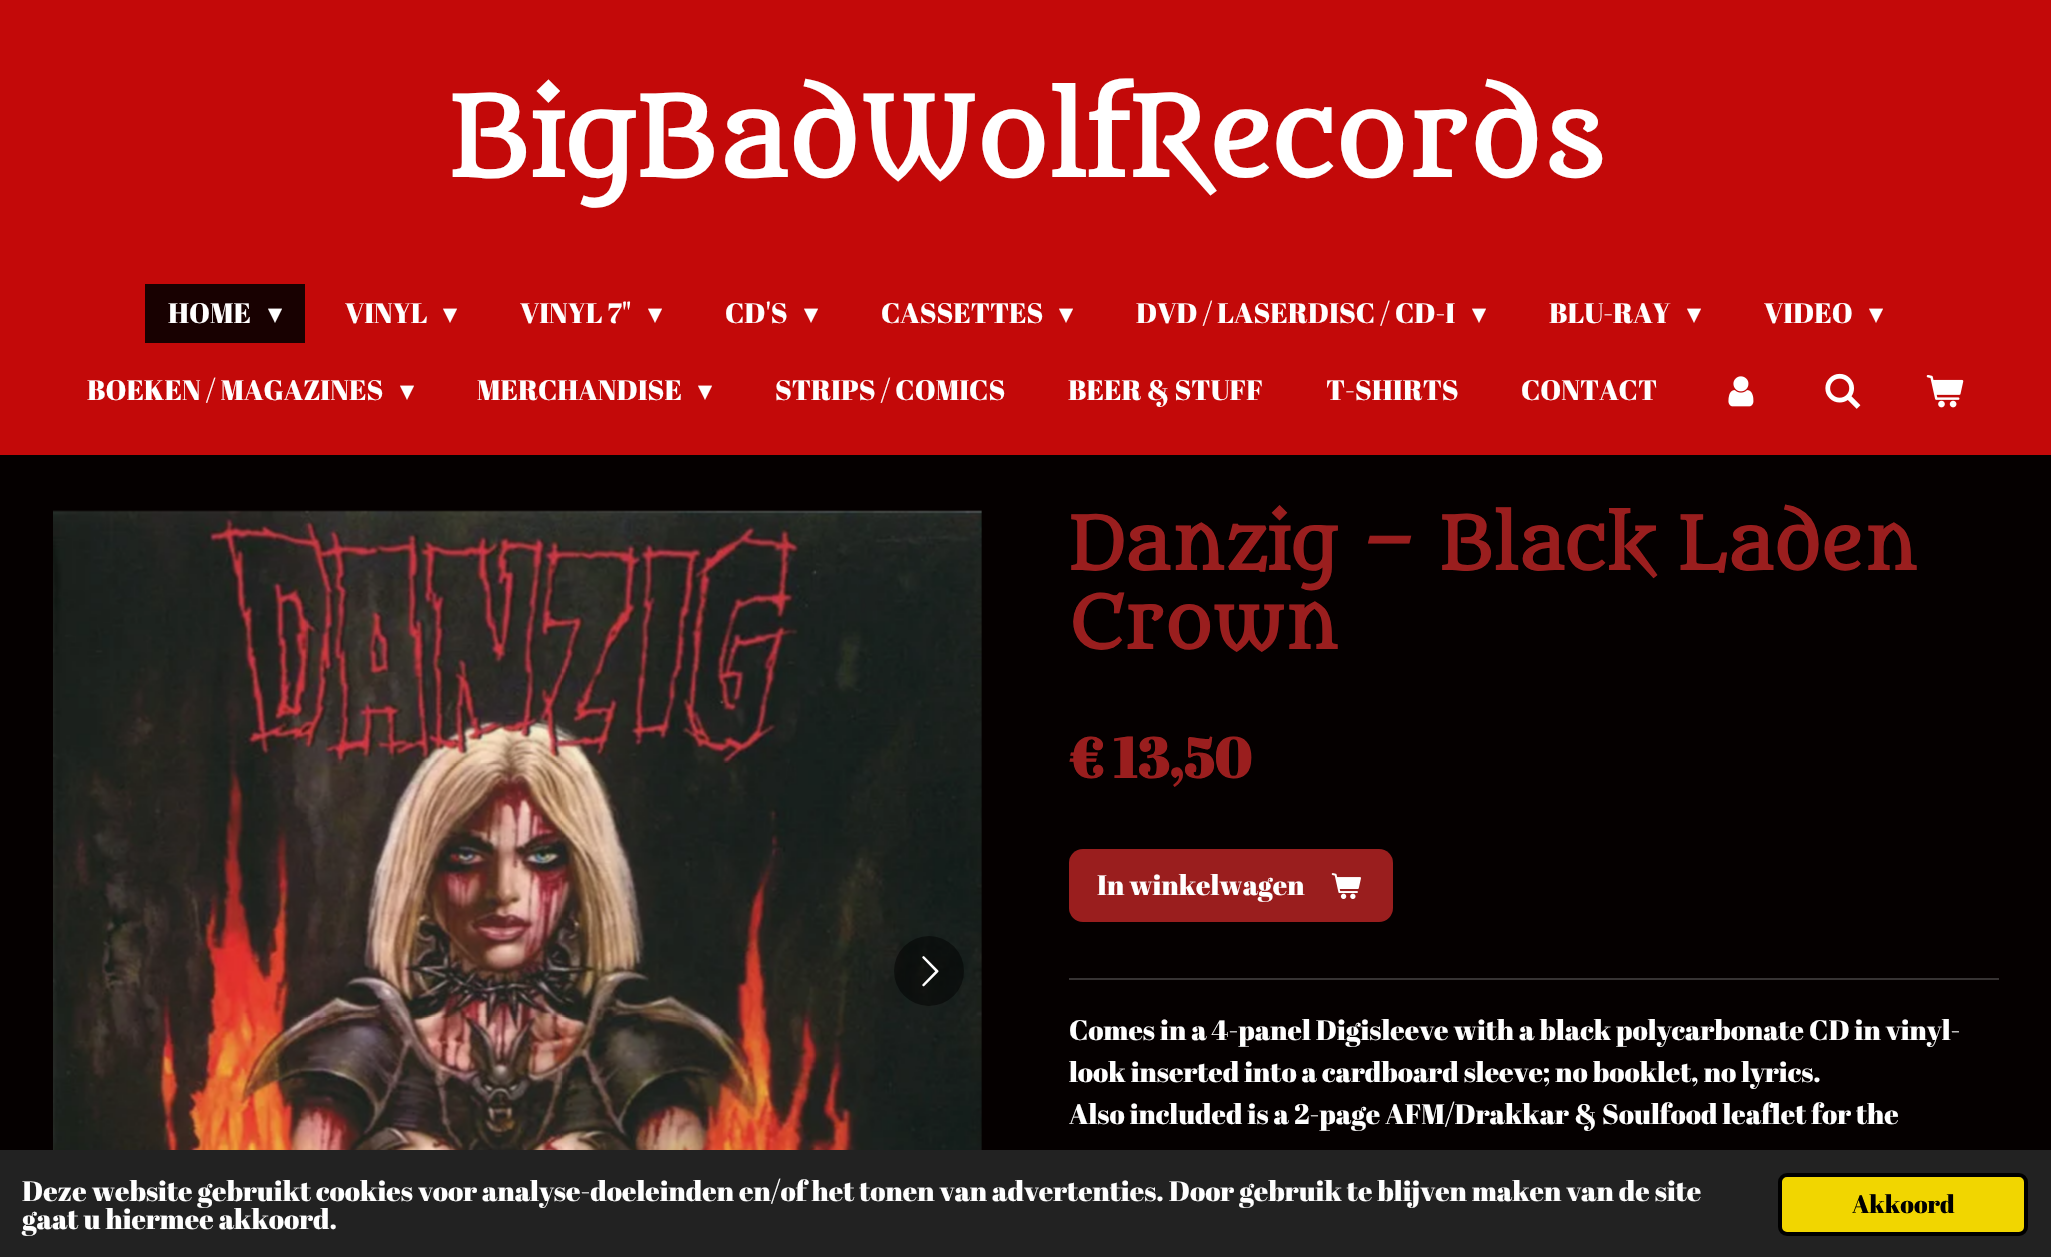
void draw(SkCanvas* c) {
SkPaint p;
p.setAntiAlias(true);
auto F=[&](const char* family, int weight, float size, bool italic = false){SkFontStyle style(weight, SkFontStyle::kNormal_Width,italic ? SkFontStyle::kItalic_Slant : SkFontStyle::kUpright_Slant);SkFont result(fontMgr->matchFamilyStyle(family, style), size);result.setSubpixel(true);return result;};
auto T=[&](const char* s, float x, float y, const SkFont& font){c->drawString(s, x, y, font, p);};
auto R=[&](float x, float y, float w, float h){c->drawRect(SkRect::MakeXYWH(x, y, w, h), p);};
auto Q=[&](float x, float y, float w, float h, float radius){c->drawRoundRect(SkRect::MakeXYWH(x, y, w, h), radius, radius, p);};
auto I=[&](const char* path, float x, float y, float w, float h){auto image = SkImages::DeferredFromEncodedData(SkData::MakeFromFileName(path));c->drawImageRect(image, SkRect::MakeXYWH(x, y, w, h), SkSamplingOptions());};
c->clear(0xffc30909);
auto f1 = F("Metamorphous",700,107.6);
p.setColor(0xffffffff);
T("BigBadWolfRecords",448,177,f1);
p.setColor(0xff180101);
R(145,284,160,59);
auto f2 = F("Abril Fatface",400,28);
p.setColor(0xffffffff);
T("HOME",168,323,f2);
auto f3 = F("DejaVu Sans",400,28);
T("▾",268,323,f3);
T("VINYL",345,323,f2);
T("▾",443,323,f3);
T("VINYL 7\"",520,323,f2);
T("▾",648,323,f3);
T("CD'S",725,323,f2);
T("▾",804,323,f3);
T("CASSETTES",881,323,f2);
T("▾",1059,323,f3);
T("DVD / LASERDISC / CD-I",1136,323,f2);
T("▾",1472,323,f3);
T("BLU-RAY",1549,323,f2);
T("▾",1687,323,f3);
T("VIDEO",1764,323,f2);
T("▾",1869,323,f3);
T("BOEKEN / MAGAZINES",87,400,f2);
T("▾",400,400,f3);
T("MERCHANDISE",477,400,f2);
T("▾",698,400,f3);
T("STRIPS / COMICS",775,400,f2);
T("BEER & STUFF",1068,400,f2);
T("T-SHIRTS",1326,400,f2);
T("CONTACT",1521,400,f2);
I("1.png",1728,376,26,31);
I("2.png",1825,373,36,36);
I("3.png",1926,375,38,33);
p.setColor(0xff050000);
R(0,455,2051,695);
I("4.png",53,510,929,640);
p.setColor(0x80000000);
c->drawCircle(929,971,35,p);
I("5.png",922,956,17,31);
auto f4 = F("Metamorphous",700,71.75);
p.setColor(0xff9a1e1e);
T("Danzig – Black Laden",1069,570,f4);
T("Crown",1069,649,f4);
auto f5 = F("Abril Fatface",700,56);
T("€ 13,50",1069,778,f5);
Q(1069,849,324,73,14);
p.setColor(0xffffffff);
T("In winkelwagen",1097,895,f2);
I("6.png",1331,873,30,26);
p.setColor(0xff373333);
R(1069,978,930,2);
p.setColor(0xffffffff);
T("Comes in a 4-panel Digisleeve with a black polycarbonate CD in vinyl-",1069,1040,f2);
T("look inserted into a cardboard sleeve; no booklet, no lyrics.",1069,1082,f2);
T("Also included is a 2-page AFM/Drakkar & Soulfood leaflet for the",1069,1124,f2);
p.setColor(0xff222222);
R(0,1150,2051,107);
p.setColor(0xffffffff);
T("Deze website gebruikt cookies voor analyse-doeleinden en/of het tonen van advertenties. Door gebruik te blijven maken van de site",22,1201,f2);
T("gaat u hiermee akkoord.",22,1229,f2);
p.setColor(0xfff1d600);
c->drawRoundRect(SkRect::MakeXYWH(1780,1175,246,59),7,7,p);
p.setStroke(true);
p.setStrokeWidth(4);
p.setColor(0xff000000);
c->drawRoundRect(SkRect::MakeXYWH(1780,1175,246,59),7,7,p);
auto f6 = F("Abril Fatface",400,25);
p.setStroke(false);
T("Akkoord",1852,1213,f6);
}
